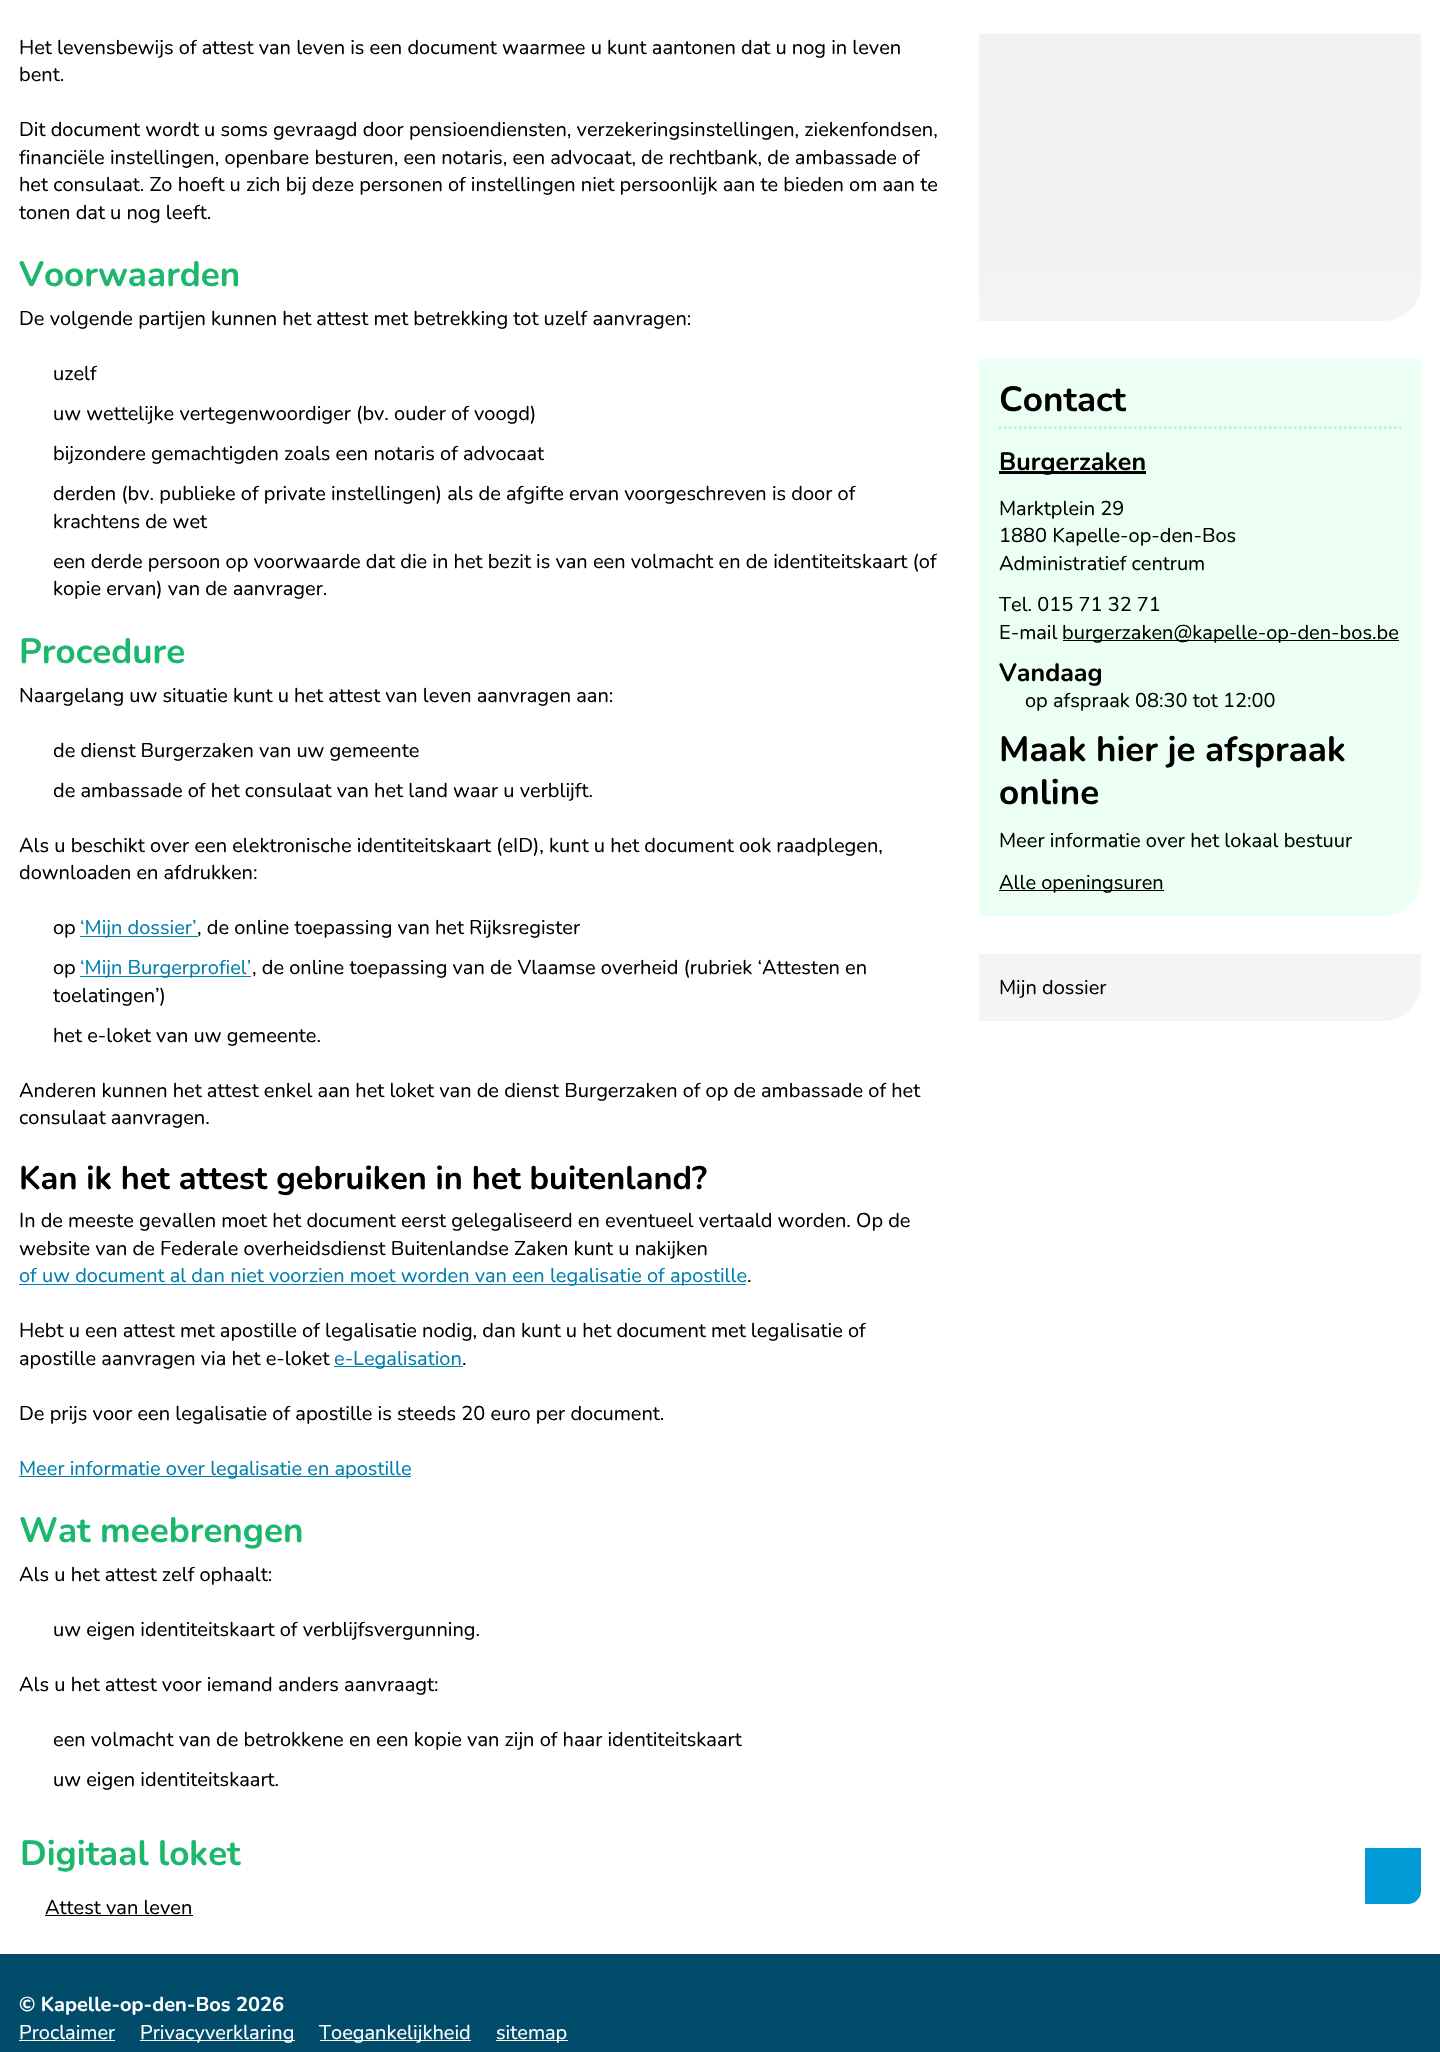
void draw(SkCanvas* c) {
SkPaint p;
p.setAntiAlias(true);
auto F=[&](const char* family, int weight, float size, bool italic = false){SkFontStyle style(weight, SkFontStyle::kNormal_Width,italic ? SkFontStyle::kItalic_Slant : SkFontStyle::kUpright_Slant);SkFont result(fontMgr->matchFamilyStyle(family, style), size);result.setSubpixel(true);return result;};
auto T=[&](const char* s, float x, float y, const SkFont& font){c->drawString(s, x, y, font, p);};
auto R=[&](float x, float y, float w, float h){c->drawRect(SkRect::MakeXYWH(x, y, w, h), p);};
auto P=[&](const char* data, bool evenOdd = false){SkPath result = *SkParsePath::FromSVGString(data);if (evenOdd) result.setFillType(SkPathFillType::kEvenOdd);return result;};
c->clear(0xffffffff);
auto f1 = F("Nunito",400,20);
p.setColor(0xff000000);
T("Het levensbewijs of attest van leven is een document waarmee u kunt aantonen dat u nog in leven",19,54,f1);
T("bent.",19,81,f1);
T("Dit document wordt u soms gevraagd door pensioendiensten, verzekeringsinstellingen, ziekenfondsen,",19,136,f1);
T("financiële instellingen, openbare besturen, een notaris, een advocaat, de rechtbank, de ambassade of",19,164,f1);
T("het consulaat. Zo hoeft u zich bij deze personen of instellingen niet persoonlijk aan te bieden om aan te",19,191,f1);
T("tonen dat u nog leeft.",19,219,f1);
auto f2 = F("Nunito",700,35);
p.setColor(0xff1bb76d);
T("Voorwaarden",19,286,f2);
p.setColor(0xff000000);
T("De volgende partijen kunnen het attest met betrekking tot uzelf aanvragen:",19,325,f1);
T("uzelf",53,380,f1);
T("uw wettelijke vertegenwoordiger (bv. ouder of voogd)",53,420,f1);
T("bijzondere gemachtigden zoals een notaris of advocaat",53,460,f1);
T("derden (bv. publieke of private instellingen) als de afgifte ervan voorgeschreven is door of",53,500,f1);
T("krachtens de wet",53,528,f1);
T("een derde persoon op voorwaarde dat die in het bezit is van een volmacht en de identiteitskaart (of",53,568,f1);
T("kopie ervan) van de aanvrager.",53,595,f1);
p.setColor(0xff1bb76d);
T("Procedure",19,663,f2);
p.setColor(0xff000000);
T("Naargelang uw situatie kunt u het attest van leven aanvragen aan:",19,702,f1);
T("de dienst Burgerzaken van uw gemeente",53,757,f1);
T("de ambassade of het consulaat van het land waar u verblijft.",53,797,f1);
T("Als u beschikt over een elektronische identiteitskaart (eID), kunt u het document ook raadplegen,",19,852,f1);
T("downloaden en afdrukken:",19,879,f1);
T("op",53,934,f1);
p.setColor(0xff007faf);
R(80,936,118,1);
T("‘Mijn dossier’",80,934,f1);
p.setColor(0xff000000);
T(", de online toepassing van het Rijksregister",197,934,f1);
T("op",53,974,f1);
p.setColor(0xff007faf);
R(80,976,171,1);
T("‘Mijn Burgerprofiel’",80,974,f1);
p.setColor(0xff000000);
T(", de online toepassing van de Vlaamse overheid (rubriek ‘Attesten en",252,974,f1);
T("toelatingen’)",53,1002,f1);
T("het e-loket van uw gemeente.",53,1042,f1);
T("Anderen kunnen het attest enkel aan het loket van de dienst Burgerzaken of op de ambassade of het",19,1097,f1);
T("consulaat aanvragen.",19,1124,f1);
auto f3 = F("Nunito",700,32.5);
T("Kan ik het attest gebruiken in het buitenland?",19,1189,f3);
T("In de meeste gevallen moet het document eerst gelegaliseerd en eventueel vertaald worden. Op de",19,1227,f1);
T("website van de Federale overheidsdienst Buitenlandse Zaken kunt u nakijken",19,1255,f1);
p.setColor(0xff007faf);
R(19,1284,727,1);
T("of uw document al dan niet voorzien moet worden van een legalisatie of apostille",19,1282,f1);
p.setColor(0xff000000);
T(".",747,1282,f1);
T("Hebt u een attest met apostille of legalisatie nodig, dan kunt u het document met legalisatie of",19,1337,f1);
T("apostille aanvragen via het e-loket",19,1365,f1);
p.setColor(0xff007faf);
R(334,1366,129,1);
T("e-Legalisation",334,1365,f1);
p.setColor(0xff000000);
T(".",462,1365,f1);
T("De prijs voor een legalisatie of apostille is steeds 20 euro per document.",19,1420,f1);
p.setColor(0xff007faf);
R(19,1476,392,1);
T("Meer informatie over legalisatie en apostille",19,1475,f1);
p.setColor(0xff1bb76d);
T("Wat meebrengen",19,1542,f2);
p.setColor(0xff000000);
T("Als u het attest zelf ophaalt:",19,1581,f1);
T("uw eigen identiteitskaart of verblijfsvergunning.",53,1636,f1);
T("Als u het attest voor iemand anders aanvraagt:",19,1691,f1);
T("een volmacht van de betrokkene en een kopie van zijn of haar identiteitskaart",53,1746,f1);
T("uw eigen identiteitskaart.",53,1786,f1);
p.setColor(0xff1bb76d);
T("Digitaal loket",20,1865,f2);
p.setColor(0xff000000);
T("Attest van leven",45,1914,f1);
R(45,1915,148,1);
p.setColor(0xfff4f4f6);
c->drawPath(P("M979 34h442v249c0 21-17 38-38 38h-404z"),p);
{
const SkColor colors[] = {0xfff2f2f2,0x00f2f2f2};
const float stops[] = {.66,1};
const SkPoint ends[] = {{1200,34}, {1200,321}};
p.setShader(SkGradientShader::MakeLinear(ends, colors, stops, 2, SkTileMode::kClamp));
p.setAlpha(255);
}
c->drawPath(P("M979 34h442v249c0 21-17 38-38 38h-404z"),p);
p.setShader(nullptr);
p.setColor(0xffecfff4);
c->drawPath(P("M979.5 359.5h441v518.5c0 20.5-17 37.5-37.5 37.5h-403.5z"),p);
p.setStroke(true);
p.setStrokeWidth(1);
c->drawPath(P("M979.5 359.5h441v518.5c0 20.5-17 37.5-37.5 37.5h-403.5z"),p);
p.setStrokeWidth(2.5);
p.setColor(0xffa0ffc8);
p.setPathEffect(SkDashPathEffect::Make({{2.5f,2.5f}}, 0));
c->drawPath(P("M999 427.5h402"),p);
p.setPathEffect(nullptr);
p.setStroke(false);
p.setColor(0xff000000);
T("Contact",999,411,f2);
R(999,471,147,3);
auto f4 = F("Nunito",700,25);
T("Burgerzaken",999,470,f4);
T("Marktplein 29",999,515,f1);
T("1880 Kapelle-op-den-Bos",999,542,f1);
T("Administratief centrum",999,570,f1);
T("Tel. 015 71 32 71",999,611,f1);
T("E-mail",999,639,f1);
R(1063,640,336,1);
T("burgerzaken@kapelle-op-den-bos.be",1062,639,f1);
T("Vandaag",999,681,f4);
T("op afspraak 08:30 tot 12:00",1025,707,f1);
T("Maak hier je afspraak",999,761,f2);
T("online",999,804,f2);
T("Meer informatie over het lokaal bestuur",999,847,f1);
R(999,890,165,1);
T("Alle openingsuren",999,889,f1);
p.setColor(0xfff4f4f6);
c->drawPath(P("M979.5 954.5h441v28.5c0 20.5-17 37.5-37.5 37.5h-403.5z"),p);
p.setStroke(true);
p.setStrokeWidth(1);
c->drawPath(P("M979.5 954.5h441v28.5c0 20.5-17 37.5-37.5 37.5h-403.5z"),p);
p.setStroke(false);
p.setColor(0xff000000);
T("Mijn dossier",999,994,f1);
p.setColor(0xff009ad6);
c->drawPath(P("M1365.5 1848.5h55v42.5c0 7-5.5 12.5-12.5 12.5h-42.5z"),p);
p.setStroke(true);
c->drawPath(P("M1365.5 1848.5h55v42.5c0 7-5.5 12.5-12.5 12.5h-42.5z"),p);
p.setStroke(false);
p.setColor(0xff004c6a);
R(0,1954,1440,98);
auto f5 = F("Nunito",700,20);
p.setColor(0xffffffff);
T("© Kapelle-op-den-Bos 2026",19,2011,f5);
T("Proclaimer",19,2039,f1);
R(19,2040,96,1);
R(140,2040,155,1);
T("Privacyverklaring",140,2039,f1);
R(320,2040,151,1);
T("Toegankelijkheid",319,2039,f1);
R(496,2040,72,1);
T("sitemap",496,2039,f1);
}
